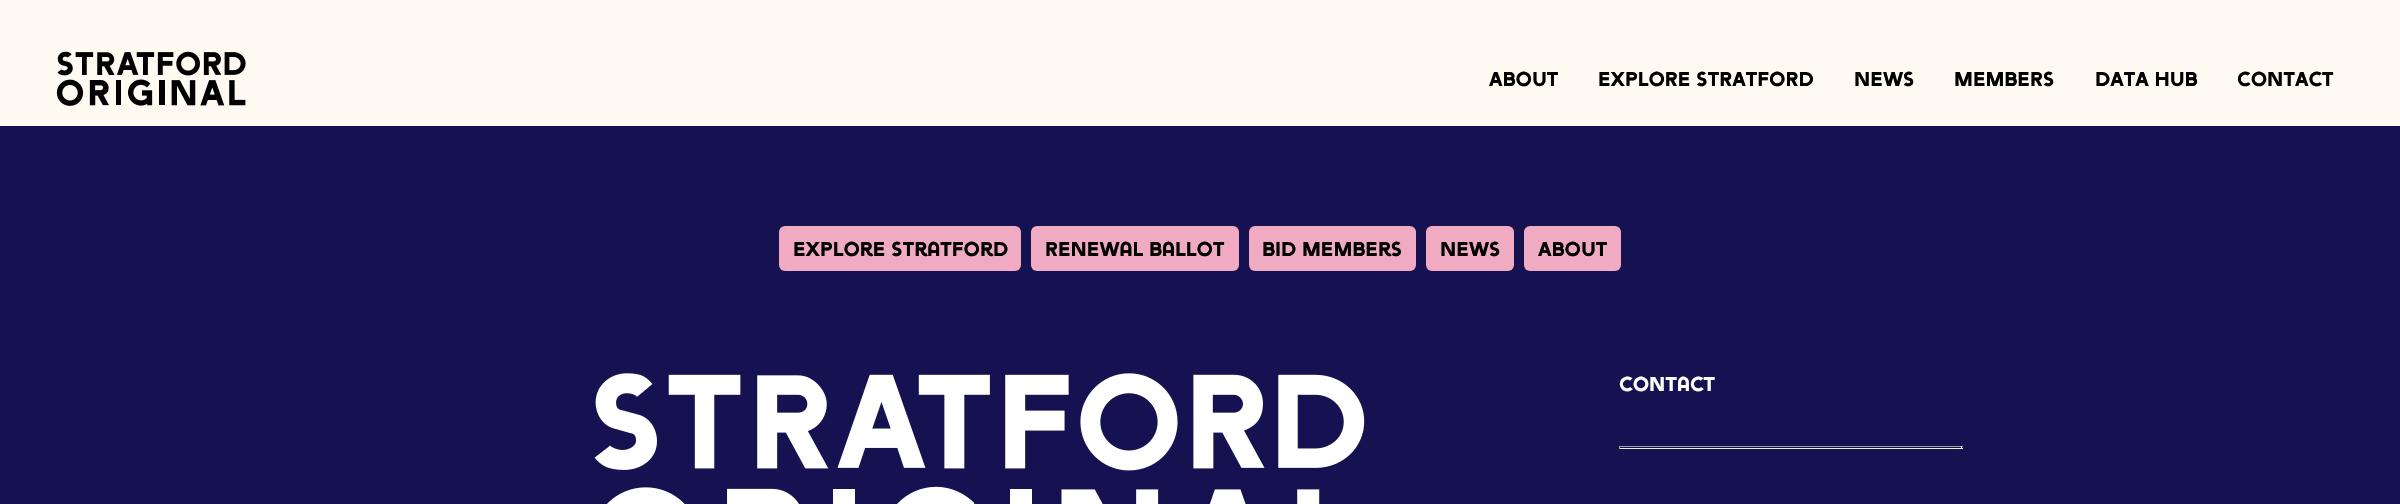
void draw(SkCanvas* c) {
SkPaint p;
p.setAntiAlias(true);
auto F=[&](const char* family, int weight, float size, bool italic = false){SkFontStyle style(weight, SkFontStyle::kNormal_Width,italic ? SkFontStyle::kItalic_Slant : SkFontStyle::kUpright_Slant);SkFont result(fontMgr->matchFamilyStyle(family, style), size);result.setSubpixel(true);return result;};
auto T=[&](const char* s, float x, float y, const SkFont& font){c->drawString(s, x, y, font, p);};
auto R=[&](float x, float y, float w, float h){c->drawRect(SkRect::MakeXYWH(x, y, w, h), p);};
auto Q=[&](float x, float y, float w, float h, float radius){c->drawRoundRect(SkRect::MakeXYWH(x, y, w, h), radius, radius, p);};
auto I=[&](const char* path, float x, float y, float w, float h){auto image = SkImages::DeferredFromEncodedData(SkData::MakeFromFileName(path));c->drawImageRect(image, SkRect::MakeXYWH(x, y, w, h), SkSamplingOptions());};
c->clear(0xfffefaf1);
I("1.png",56,51,190,55);
auto f1 = F("Arya",400,20);
p.setColor(0xff000000);
T("ABOUT",1489,86,f1);
T("EXPLORE STRATFORD",1598,86,f1);
T("NEWS",1854,86,f1);
T("MEMBERS",1954,86,f1);
T("DATA HUB",2095,86,f1);
T("CONTACT",2237,86,f1);
p.setColor(0xff161150);
R(0,126,2400,378);
p.setColor(0xfff0aac1);
Q(779,226,242,45,6);
p.setColor(0xff000000);
T("Explore Stratford",793,256,f1);
p.setColor(0xfff0aac1);
Q(1031,226,208,45,6);
p.setColor(0xff000000);
T("Renewal Ballot",1045,256,f1);
p.setColor(0xfff0aac1);
Q(1249,226,167,45,6);
p.setColor(0xff000000);
T("BID Members",1262,256,f1);
p.setColor(0xfff0aac1);
Q(1426,226,88,45,6);
p.setColor(0xff000000);
T("News",1440,256,f1);
p.setColor(0xfff0aac1);
Q(1524,226,97,45,6);
p.setColor(0xff000000);
T("About",1538,256,f1);
I("2.png",594,373,771,131);
p.setColor(0xffffffff);
T("Contact",1619,391,f1);
p.setColor(0xff9f9f9f);
R(1619,446,344,1);
p.setColor(0xffeeeeee);
R(1961,446,1,3);
R(1619,448,344,1);
p.setColor(0xff9f9f9f);
R(1619,446,1,3);
}
